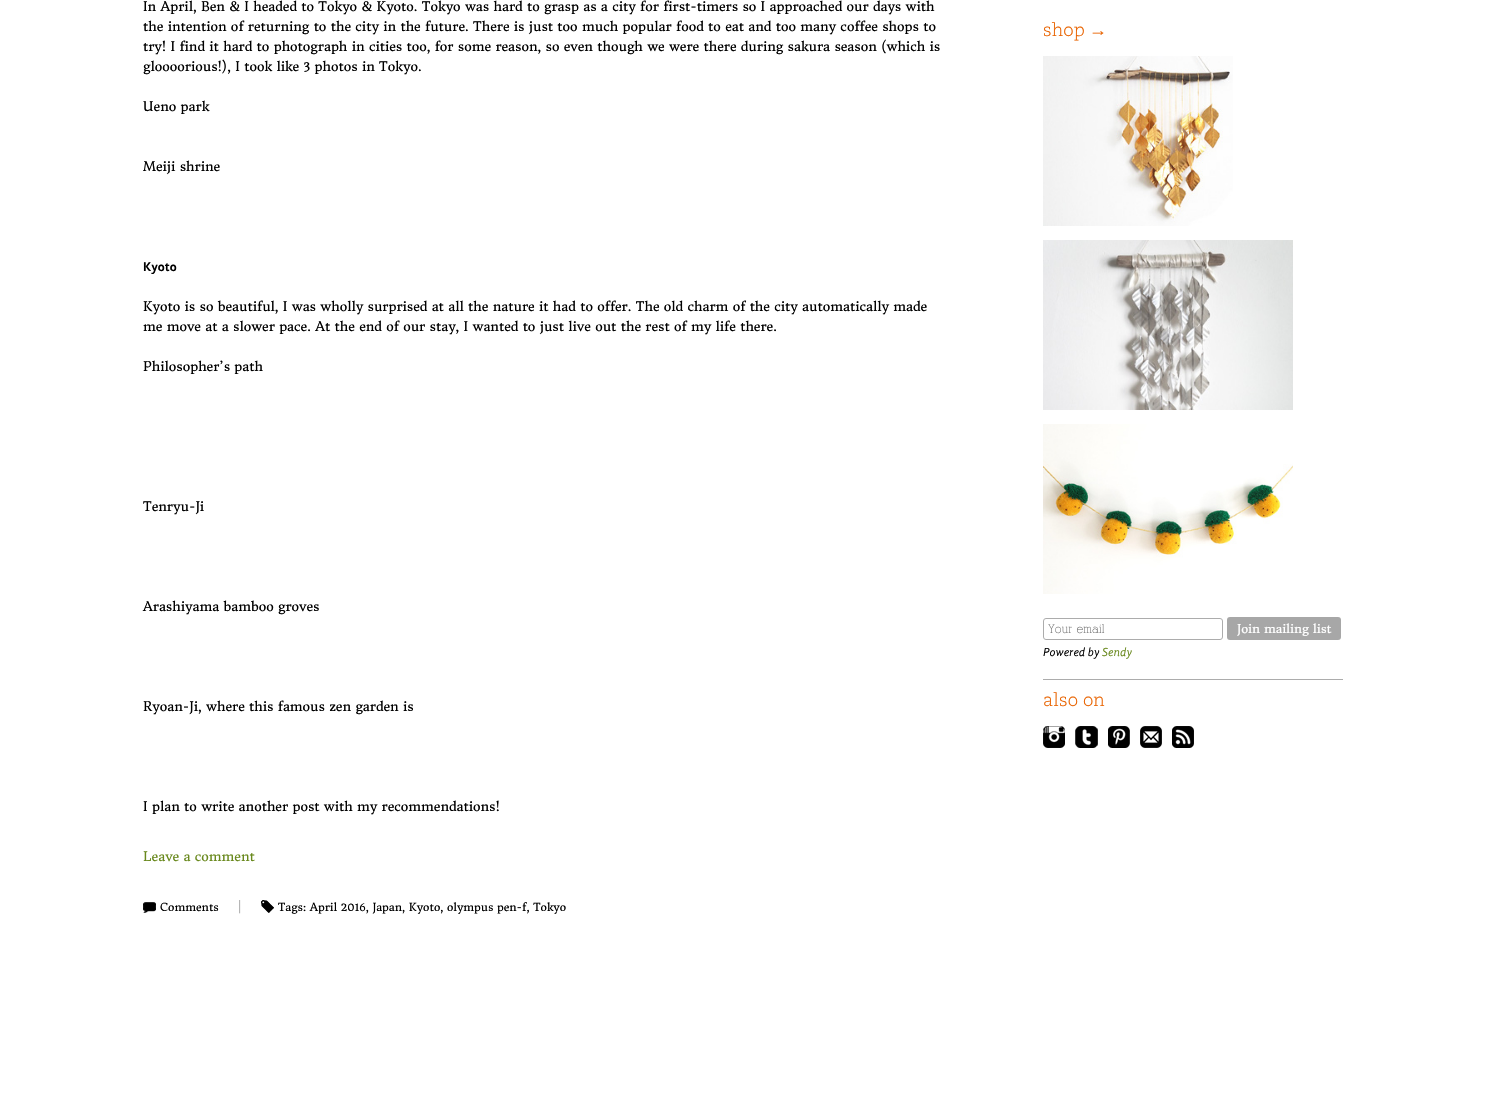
void draw(SkCanvas* c) {
SkPaint p;
p.setAntiAlias(true);
auto F=[&](const char* family, int weight, float size, bool italic = false){SkFontStyle style(weight, SkFontStyle::kNormal_Width,italic ? SkFontStyle::kItalic_Slant : SkFontStyle::kUpright_Slant);SkFont result(fontMgr->matchFamilyStyle(family, style), size);result.setSubpixel(true);return result;};
auto T=[&](const char* s, float x, float y, const SkFont& font){c->drawString(s, x, y, font, p);};
auto R=[&](float x, float y, float w, float h){c->drawRect(SkRect::MakeXYWH(x, y, w, h), p);};
auto Q=[&](float x, float y, float w, float h, float radius){c->drawRoundRect(SkRect::MakeXYWH(x, y, w, h), radius, radius, p);};
auto I=[&](const char* path, float x, float y, float w, float h){auto image = SkImages::DeferredFromEncodedData(SkData::MakeFromFileName(path));c->drawImageRect(image, SkRect::MakeXYWH(x, y, w, h), SkSamplingOptions());};
c->clear(0xffffffff);
auto f1 = F("Donegal One",400,13);
p.setColor(0xff000000);
T("In April, Ben & I headed to Tokyo & Kyoto. Tokyo was hard to grasp as a city for first-timers so I approached our days with",143,11,f1);
T("the intention of returning to the city in the future. There is just too much popular food to eat and too many coffee shops to",143,31,f1);
T("try! I find it hard to photograph in cities too, for some reason, so even though we were there during sakura season (which is",143,51,f1);
T("gloooorious!), I took like 3 photos in Tokyo.",143,71,f1);
T("Ueno park",143,111,f1);
T("Meiji shrine",143,171,f1);
auto f2 = F("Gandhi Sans",700,13);
T("Kyoto",143,271,f2);
T("Kyoto is so beautiful, I was wholly surprised at all the nature it had to offer. The old charm of the city automatically made",143,311,f1);
T("me move at a slower pace. At the end of our stay, I wanted to just live out the rest of my life there.",143,331,f1);
T("Philosopher’s path",143,371,f1);
T("Tenryu-Ji",143,511,f1);
T("Arashiyama bamboo groves",143,611,f1);
T("Ryoan-Ji, where this famous zen garden is",143,711,f1);
T("I plan to write another post with my recommendations!",143,811,f1);
p.setColor(0xff69891d);
T("Leave a comment",143,861,f1);
I("1.png",143,902,13,11);
auto f3 = F("Donegal One",400,11);
p.setColor(0xff000000);
T("Comments",160,911,f3);
p.setColor(0xffacacac);
T("|",238,911,f1);
I("2.png",261,900,13,13);
p.setColor(0xff000000);
T("Tags: April 2016, Japan, Kyoto, olympus pen-f, Tokyo",278,911,f3);
auto f4 = F("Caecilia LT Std",300,18);
p.setColor(0xffe96300);
T("shop",1043,36,f4);
auto f5 = F("Liberation Sans",400,18);
T("→",1089,36,f5);
I("3.png",1043,56,190,170);
I("4.png",1043,240,250,170);
I("5.png",1043,424,250,170);
p.setStroke(true);
p.setStrokeWidth(1);
p.setColor(0xffacacac);
c->drawRoundRect(SkRect::MakeXYWH(1043.5,618.5,179,21),2.5,2.5,p);
auto f6 = F("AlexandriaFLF",500,12);
p.setStroke(false);
p.setColor(0xff757575);
T("Your email",1048,633,f6);
p.setColor(0xffa7a7a7);
Q(1227,617,114,23,3);
auto f7 = F("Donegal One",400,12);
p.setColor(0xffffffff);
T("Join mailing list",1237,633,f7);
auto f8 = F("Gandhi Sans",400,12,true);
p.setColor(0xff000000);
T("Powered by",1043,656,f8);
p.setColor(0xff69891d);
T("Sendy",1102,656,f8);
p.setColor(0xffacacac);
R(1043,679,300,1);
p.setColor(0xffe96300);
T("also on",1043,706,f4);
I("6.png",1043,726,22,22);
I("7.png",1075,726,23,22);
I("8.png",1108,726,22,22);
I("9.png",1140,726,22,22);
I("10.png",1172,726,22,22);
}
